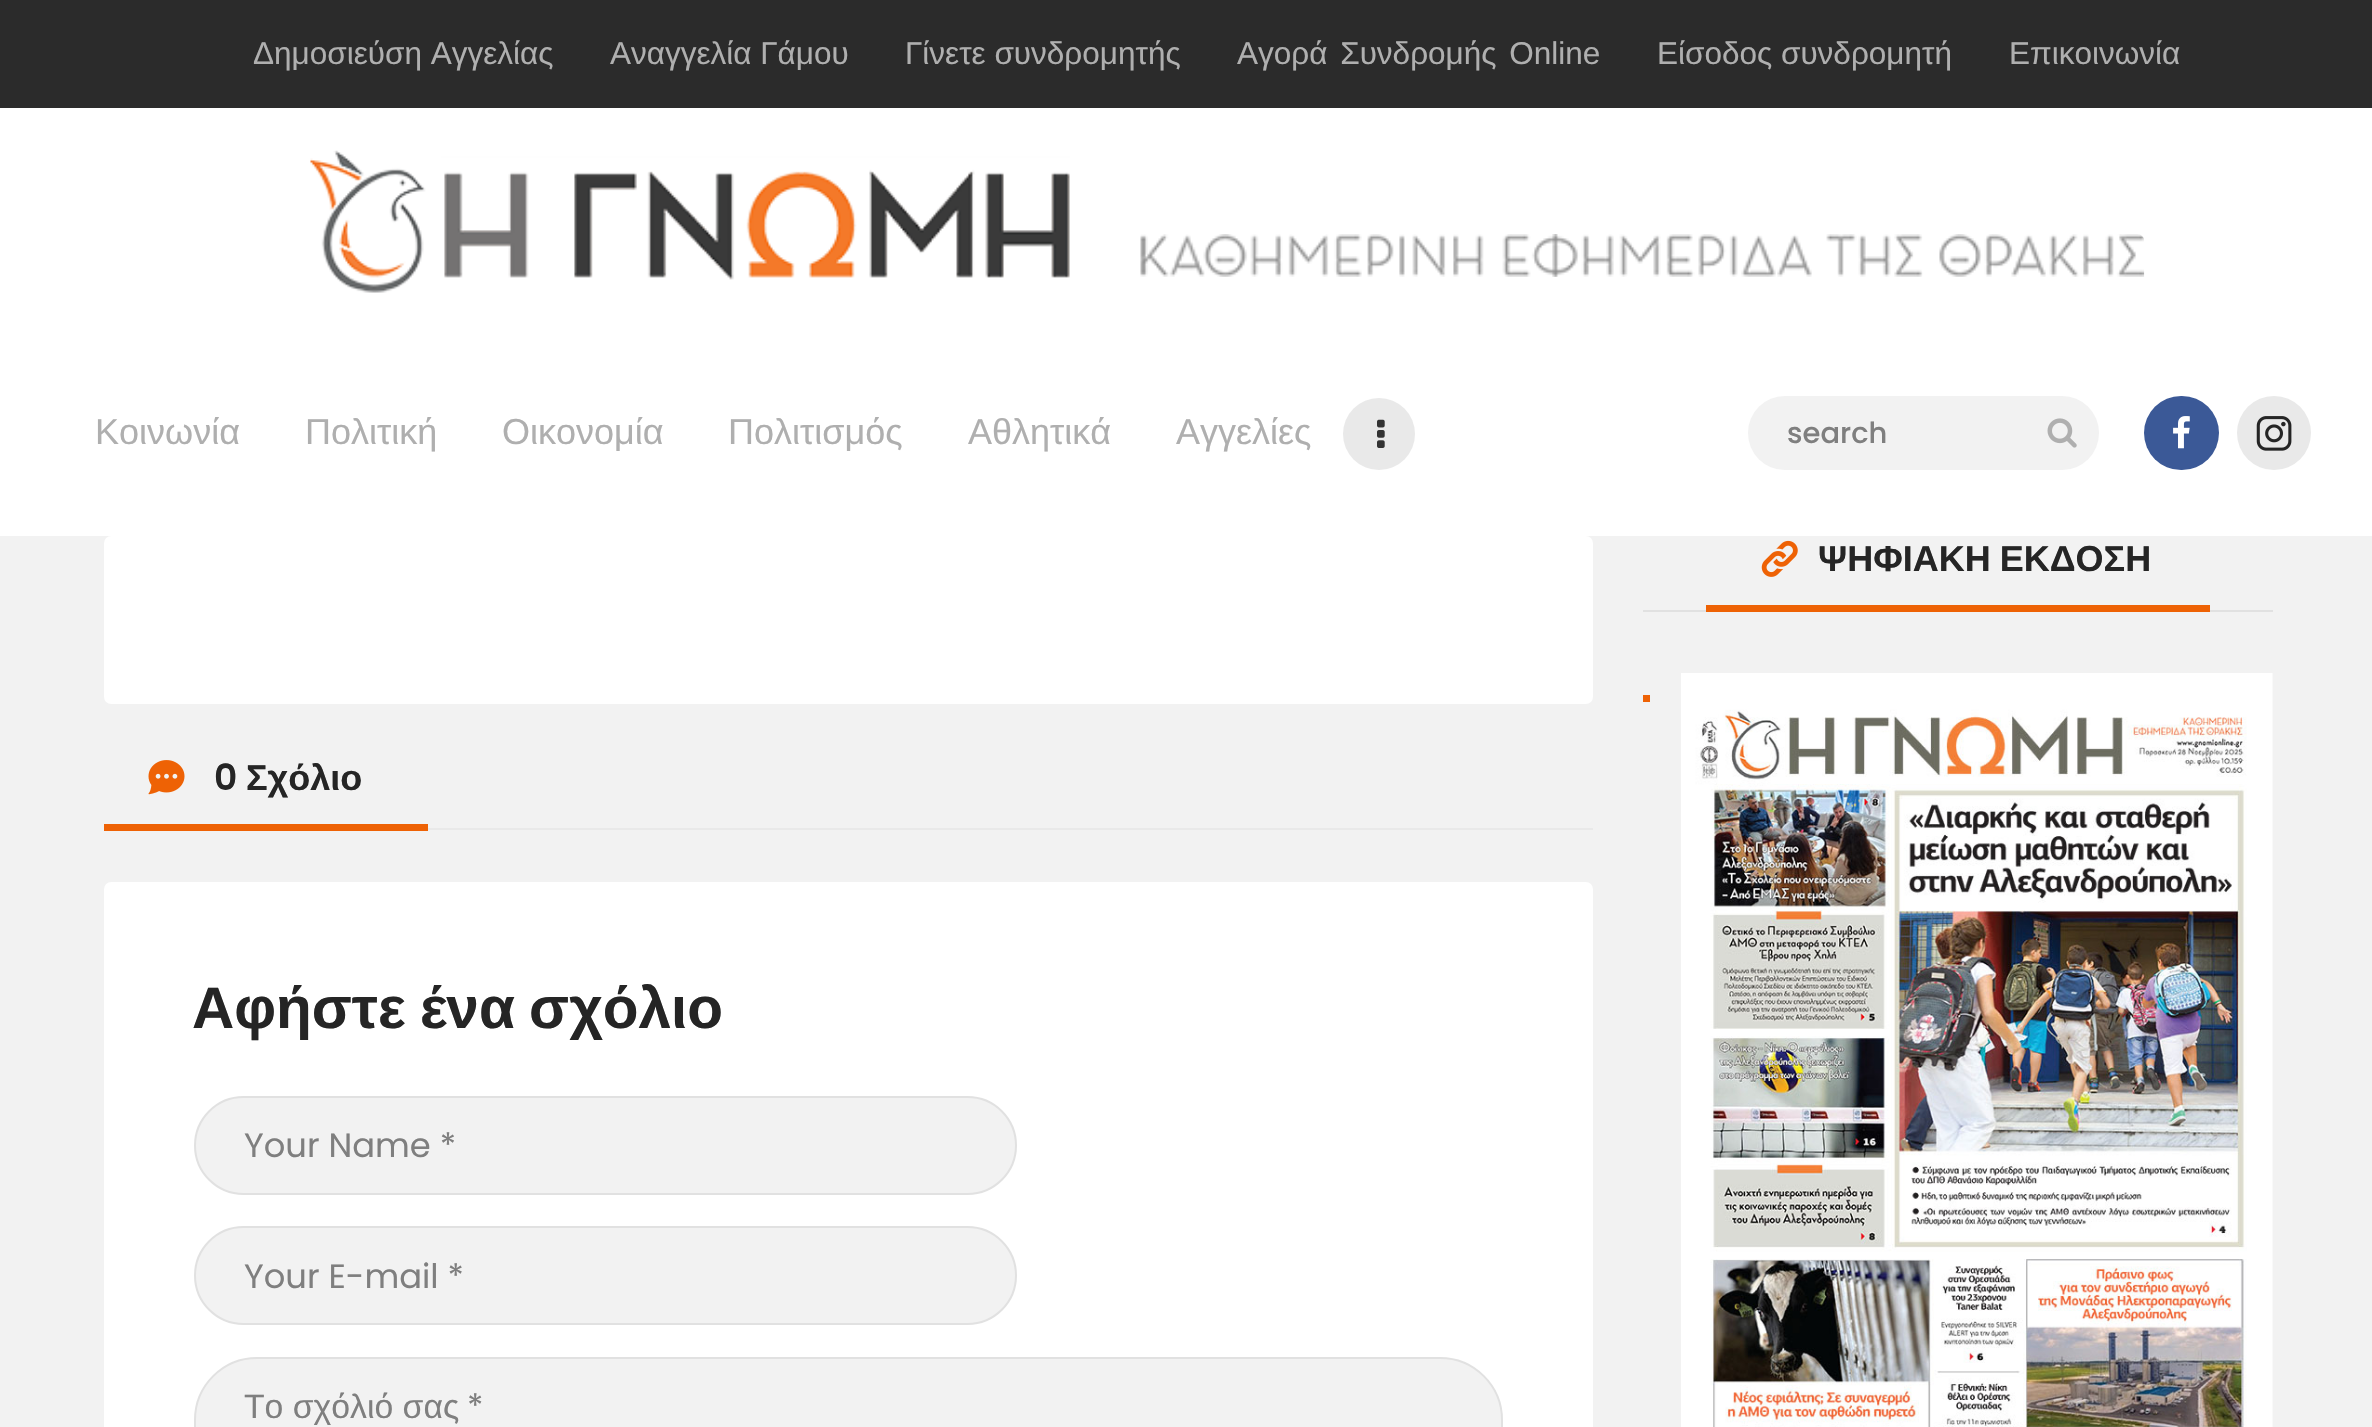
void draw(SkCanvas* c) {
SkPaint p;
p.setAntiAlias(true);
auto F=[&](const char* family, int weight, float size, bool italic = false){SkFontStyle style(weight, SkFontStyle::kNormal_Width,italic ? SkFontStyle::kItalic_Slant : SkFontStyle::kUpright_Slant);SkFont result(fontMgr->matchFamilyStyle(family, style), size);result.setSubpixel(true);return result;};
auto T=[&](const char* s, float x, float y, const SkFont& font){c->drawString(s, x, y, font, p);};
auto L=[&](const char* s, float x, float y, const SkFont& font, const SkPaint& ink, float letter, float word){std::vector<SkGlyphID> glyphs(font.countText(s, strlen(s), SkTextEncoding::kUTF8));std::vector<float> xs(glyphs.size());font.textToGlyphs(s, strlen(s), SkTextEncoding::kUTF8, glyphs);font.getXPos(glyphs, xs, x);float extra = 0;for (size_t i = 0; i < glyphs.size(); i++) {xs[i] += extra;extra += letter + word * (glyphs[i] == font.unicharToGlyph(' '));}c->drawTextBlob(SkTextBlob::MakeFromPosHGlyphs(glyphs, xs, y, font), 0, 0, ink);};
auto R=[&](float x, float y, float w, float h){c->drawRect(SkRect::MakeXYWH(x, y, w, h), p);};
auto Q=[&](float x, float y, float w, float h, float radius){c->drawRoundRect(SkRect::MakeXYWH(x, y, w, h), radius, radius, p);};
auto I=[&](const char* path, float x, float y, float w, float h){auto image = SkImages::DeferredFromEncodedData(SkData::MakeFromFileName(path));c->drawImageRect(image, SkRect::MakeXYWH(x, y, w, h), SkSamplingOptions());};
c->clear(0xfff2f2f2);
p.setColor(0xffffffff);
R(0,108,2372,428);
p.setColor(0xff2b2b2b);
R(0,0,2372,108);
auto f1 = F("Liberation Sans",400,31.5);
p.setColor(0xffafafaf);
T("Δημοσιεύση Αγγελίας",253,64,f1);
T("Αναγγελία Γάμου",610,64,f1);
T("Γίνετε συνδρομητής",905,64,f1);
L("Αγορά Συνδρομής Online",1237,64,f1,p,0,4);
T("Είσοδος συνδρομητή",1657,64,f1);
T("Επικοινωνία",2009,64,f1);
I("1.png",310,150,760,143);
I("2.png",1140,234,1005,43);
auto f2 = F("Liberation Sans",400,36);
T("Κοινωνία",95,444,f2);
T("Πολιτική",305,444,f2);
T("Οικονομία",502,444,f2);
T("Πολιτισμός",728,444,f2);
T("Αθλητικά",968,444,f2);
T("Αγγελίες",1176,444,f2);
p.setColor(0xffe9e9e9);
c->drawCircle(1379,434,36,p);
I("3.png",1377,419,8,29);
p.setColor(0xfff2f2f2);
Q(1748,396,351,74,37);
auto f3 = F("Poppins",500,29);
p.setColor(0xff7f7f7f);
T("search",1787,443,f3);
I("4.png",2047,418,30,30);
p.setColor(0xff3b5997);
Q(2144,396,75,74,37);
I("5.png",2173,416,17,33);
p.setColor(0xffe9e9e9);
c->drawCircle(2274,433,37,p);
I("6.png",2256,416,36,35);
p.setColor(0xffe1e1e1);
R(1643,610,630,2);
p.setColor(0xffee6205);
R(1706,605,504,7);
I("7.png",1761,540,37,37);
auto f4 = F("Liberation Sans",700,36);
p.setColor(0xff252525);
L("ΨΗΦΙΑΚΗ ΕΚΔΟΣΗ",1818,571,f4,p,0,-1);
p.setColor(0xffee6205);
R(1643,695,7,7);
I("8.png",1681,673,592,754);
p.setColor(0xffffffff);
Q(104,536,1489,168,7);
p.setColor(0xffe9e9e9);
R(428,828,1165,2);
p.setColor(0xffee6205);
R(104,824,324,7);
I("9.png",148,760,37,35);
auto f5 = F("Poppins",600,36);
p.setColor(0xff252525);
T("0",214,790,f5);
T("Σχόλιο",246,790,f4);
p.setColor(0xffffffff);
Q(104,882,1489,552,7);
auto f6 = F("Liberation Sans",700,58.5);
p.setColor(0xff252525);
L("Αφήστε ένα σχόλιο",192,1028,f6,p,0,-2);
p.setColor(0xfff2f2f2);
c->drawRoundRect(SkRect::MakeXYWH(195,1097,821,97),48.5,48.5,p);
p.setStroke(true);
p.setStrokeWidth(2);
p.setColor(0xffe1e1e1);
c->drawRoundRect(SkRect::MakeXYWH(195,1097,821,97),48.5,48.5,p);
auto f7 = F("Poppins",400,33.75);
p.setStroke(false);
p.setColor(0xff7f7f7f);
T("Your Name *",244,1157,f7);
p.setColor(0xfff2f2f2);
c->drawRoundRect(SkRect::MakeXYWH(195,1227,821,97),48.5,48.5,p);
p.setStroke(true);
p.setColor(0xffe1e1e1);
c->drawRoundRect(SkRect::MakeXYWH(195,1227,821,97),48.5,48.5,p);
p.setStroke(false);
p.setColor(0xff7f7f7f);
T("Your E-mail *",244,1288,f7);
p.setColor(0xfff2f2f2);
c->drawRoundRect(SkRect::MakeXYWH(195,1358,1307,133),62,62,p);
p.setStroke(true);
p.setColor(0xffe1e1e1);
c->drawRoundRect(SkRect::MakeXYWH(195,1358,1307,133),62,62,p);
auto f8 = F("Liberation Sans",400,33.75);
p.setStroke(false);
p.setColor(0xff7f7f7f);
T("Το σχόλιό σας",244,1418,f8);
T("*",467,1418,f7);
}
